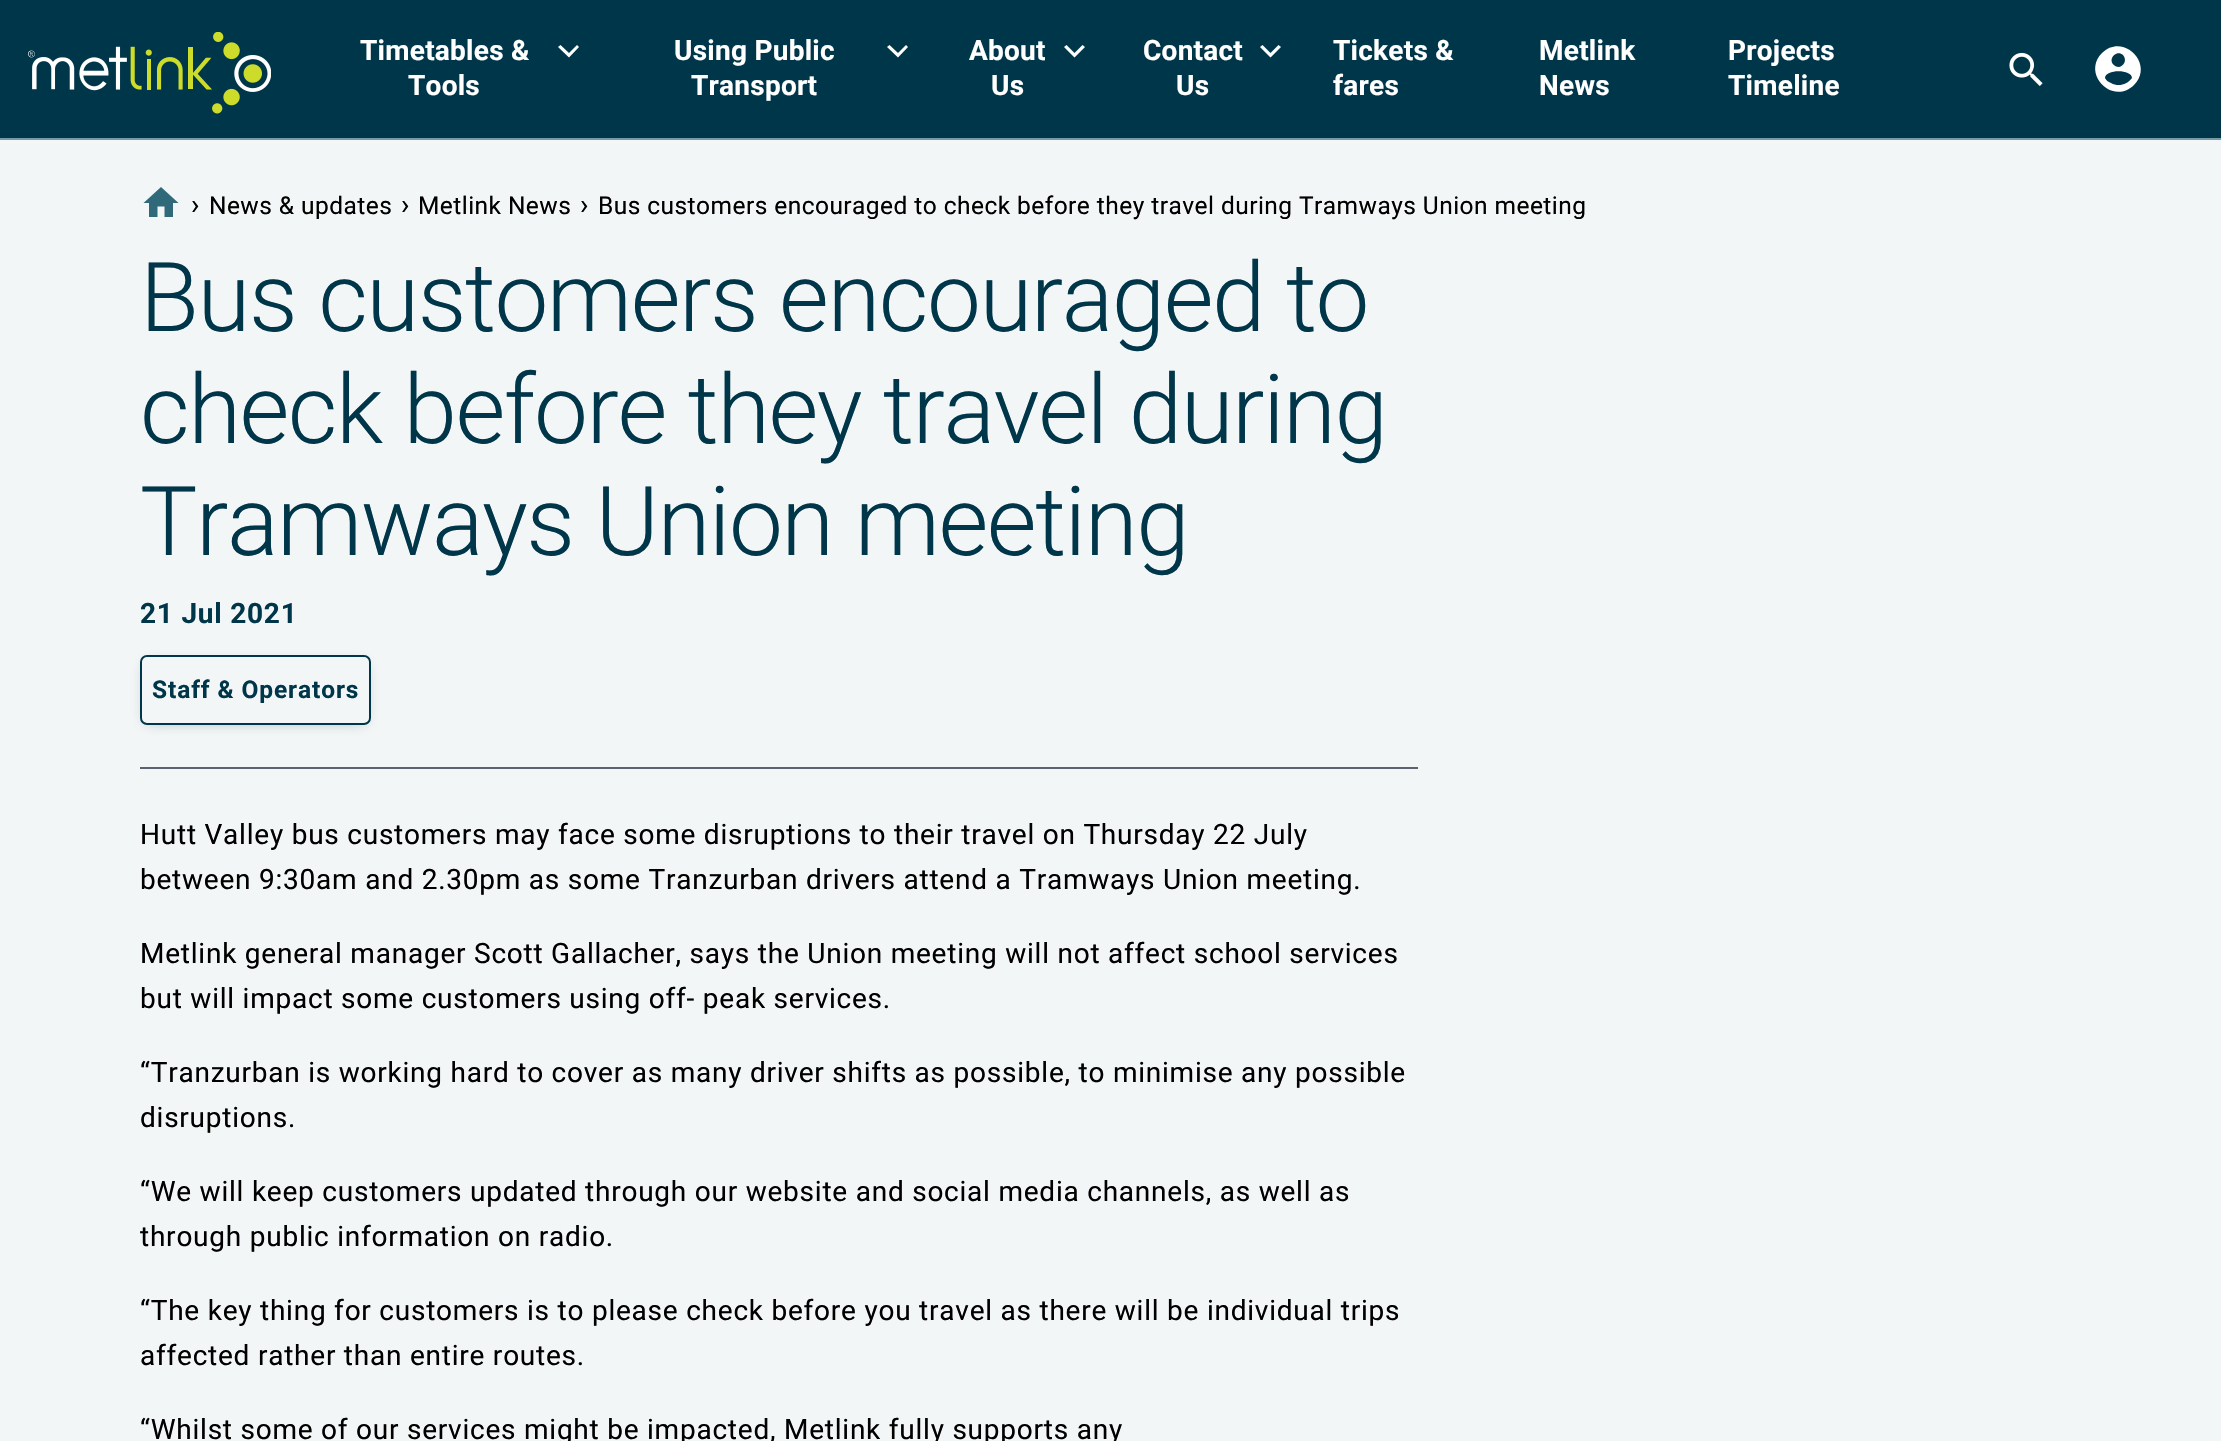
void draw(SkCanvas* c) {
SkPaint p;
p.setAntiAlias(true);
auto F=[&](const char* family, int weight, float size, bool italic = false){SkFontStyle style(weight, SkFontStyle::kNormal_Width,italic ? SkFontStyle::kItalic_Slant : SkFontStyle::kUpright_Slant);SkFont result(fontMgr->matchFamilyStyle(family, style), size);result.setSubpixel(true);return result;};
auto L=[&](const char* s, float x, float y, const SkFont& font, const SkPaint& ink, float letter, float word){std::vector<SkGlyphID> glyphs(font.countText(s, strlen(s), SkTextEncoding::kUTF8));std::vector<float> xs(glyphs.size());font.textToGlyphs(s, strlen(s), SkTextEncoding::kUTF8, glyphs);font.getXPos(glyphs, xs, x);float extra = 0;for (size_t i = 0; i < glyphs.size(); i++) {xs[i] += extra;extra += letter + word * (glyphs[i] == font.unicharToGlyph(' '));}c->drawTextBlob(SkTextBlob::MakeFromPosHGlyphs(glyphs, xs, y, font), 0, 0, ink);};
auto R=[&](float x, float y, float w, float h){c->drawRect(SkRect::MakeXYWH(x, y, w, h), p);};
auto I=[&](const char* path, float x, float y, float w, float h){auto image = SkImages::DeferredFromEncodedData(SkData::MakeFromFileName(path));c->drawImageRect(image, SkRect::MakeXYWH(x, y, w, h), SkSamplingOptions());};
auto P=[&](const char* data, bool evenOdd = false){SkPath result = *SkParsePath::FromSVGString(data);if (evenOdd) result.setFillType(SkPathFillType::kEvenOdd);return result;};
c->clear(0xfff3f6f6);
p.setColor(0xff00364a);
R(0,0,2221,138);
p.setColor(0xff779ba5);
R(0,138,2221,2);
I("1.png",28,32,243,82);
auto f1 = F("Roboto",700,28);
p.setColor(0xffffffff);
L("Timetables &",360,60,f1,p,.25,0);
L("Tools",408,95,f1,p,.25,0);
c->drawPath(P("M560.5 45l8.5 8l8-8l2 2l-10 10.5l-11-10.5z"),p);
L("Using Public",674,60,f1,p,.25,0);
L("Transport",691,95,f1,p,.25,0);
c->drawPath(P("M889.5 45l8.5 8l8-8l2 2l-10 10.5l-11-10.5z"),p);
L("About",969,60,f1,p,.25,0);
L("Us",991,95,f1,p,.25,0);
c->drawPath(P("M1066.5 45l8 8l8-8l2.5 2l-10.5 10.5l-10.5-10.5z"),p);
L("Contact",1143,60,f1,p,.25,0);
L("Us",1176,95,f1,p,.25,0);
c->drawPath(P("M1262.5 45l8 8l8-8l2.5 2l-10.5 10.5l-10.5-10.5z"),p);
L("Tickets &",1333,60,f1,p,.25,0);
L("fares",1333,95,f1,p,.25,0);
L("Metlink",1539,60,f1,p,.25,0);
L("News",1539,95,f1,p,.25,0);
L("Projects",1728,60,f1,p,.25,0);
L("Timeline",1728,95,f1,p,.25,0);
I("2.png",2009,52,34,34);
c->drawPath(P("M2111 83c7 4 16 2 21-5c0-9-27-9-27 0c1 2 3 4 6 5zm12-28c-6-6-16 4-9 10c6 6 15-3 9-10zm-21-2c21-21 53 11 32 32c-21 21-53-11-32-32z"),p);
p.setColor(0xff306a7a);
c->drawPath(P("M157.5 217h-8.5v-14h-5.5l17.5-16l17.5 16h-5.5v14h-8.5v-10.5h-7z"),p);
auto f2 = F("Roboto",400,28);
p.setColor(0xff000000);
L("›",191,214,f2,p,.77,0);
auto f3 = F("Roboto",400,24.5);
L("News & updates",209,214,f3,p,.45,0);
L("›",401,214,f2,p,.77,0);
L("Metlink News",418,214,f3,p,.45,0);
L("›",580,214,f2,p,.77,0);
L("Bus customers encouraged to check before they travel during Tramways Union meeting",598,214,f3,p,.45,0);
auto f4 = F("Roboto",300,96.25);
p.setColor(0xff00364a);
L("Bus customers encouraged to",140,331,f4,p,-1.5,0);
L("check before they travel during",140,443,f4,p,-1.5,0);
L("Tramways Union meeting",140,555,f4,p,-1.5,0);
L("21 Jul 2021",140,623,f1,p,.77,0);
c->save();
c->clipPath(P("M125 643h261v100h-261zm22 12h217c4 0 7 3 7 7v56c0 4-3 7-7 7h-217c-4 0-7-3-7-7v-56c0-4 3-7 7-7z",true),true);
p.setColor(0x63002b3b);
p.setMaskFilter(SkMaskFilter::MakeBlur(kNormal_SkBlurStyle, 7));
c->drawRect(SkRect::MakeXYWH(147,665,217,56),p);
p.setMaskFilter(nullptr);
c->restore();
p.setStroke(true);
p.setStrokeWidth(2);
p.setColor(0xff00364a);
c->drawRoundRect(SkRect::MakeXYWH(141,656,229,68),6,6,p);
auto f5 = F("Roboto",700,24.5);
p.setStroke(false);
L("Staff & Operators",152,698,f5,p,.9,0);
p.setColor(0xff5d636e);
R(140,767,1278,2);
p.setColor(0xff000000);
L("Hutt Valley bus customers may face some disruptions to their travel on Thursday 22 July",140,844,f2,p,.77,0);
L("between 9:30am and 2.30pm as some Tranzurban drivers attend a Tramways Union meeting.",140,889,f2,p,.77,0);
L("Metlink general manager Scott Gallacher, says the Union meeting will not affect school services",140,963,f2,p,.77,0);
L("but will impact some customers using off- peak services.",140,1008,f2,p,.77,0);
L("“Tranzurban is working hard to cover as many driver shifts as possible, to minimise any possible",140,1082,f2,p,.77,0);
L("disruptions.",140,1127,f2,p,.77,0);
L("“We will keep customers updated through our website and social media channels, as well as",140,1201,f2,p,.77,0);
L("through public information on radio.",140,1246,f2,p,.77,0);
L("“The key thing for customers is to please check before you travel as there will be individual trips",140,1320,f2,p,.77,0);
L("affected rather than entire routes.",140,1365,f2,p,.77,0);
L("“Whilst some of our services might be impacted, Metlink fully supports any",140,1439,f2,p,.77,0);
}
